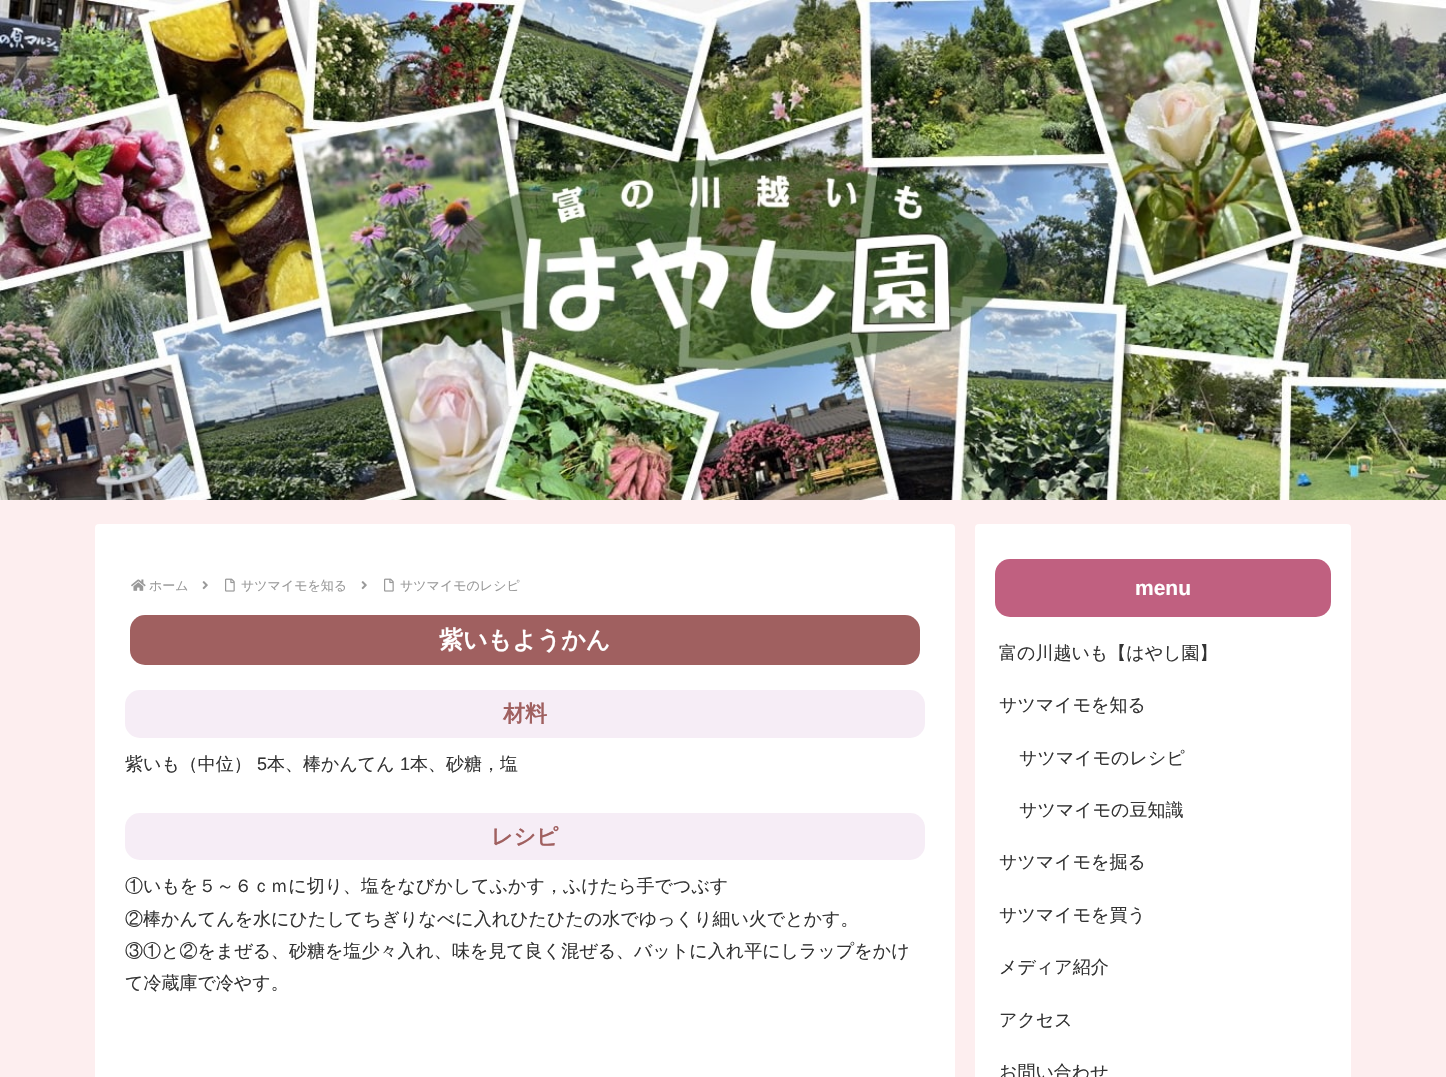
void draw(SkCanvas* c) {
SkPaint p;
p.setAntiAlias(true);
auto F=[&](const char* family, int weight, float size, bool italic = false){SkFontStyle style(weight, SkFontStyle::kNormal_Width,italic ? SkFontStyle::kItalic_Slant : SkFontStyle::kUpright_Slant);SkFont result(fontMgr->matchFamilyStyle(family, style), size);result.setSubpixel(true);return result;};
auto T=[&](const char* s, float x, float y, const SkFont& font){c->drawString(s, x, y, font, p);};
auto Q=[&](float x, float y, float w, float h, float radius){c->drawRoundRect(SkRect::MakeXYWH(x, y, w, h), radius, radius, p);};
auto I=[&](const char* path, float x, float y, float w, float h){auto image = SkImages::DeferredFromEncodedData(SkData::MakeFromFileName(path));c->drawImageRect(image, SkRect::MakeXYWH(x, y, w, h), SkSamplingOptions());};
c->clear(0xfffdeeef);
I("1.png",0,0,1446,500);
p.setColor(0xffffffff);
Q(95,524,860,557,4);
I("2.png",131,579,15,12);
auto f1 = F("WenQuanYi Zen Hei",500,13);
p.setColor(0xff999999);
T("ホーム",149,590,f1);
I("3.png",202,581,6,9);
I("4.png",225,578,10,14);
T("サツマイモを知る",241,590,f1);
I("3.png",361,581,6,9);
I("4.png",384,578,10,14);
T("サツマイモのレシピ",400,590,f1);
p.setColor(0xffa06060);
Q(130,615,790,50,15);
auto f2 = F("WenQuanYi Zen Hei",700,24);
p.setColor(0xffffffff);
T("紫いもようかん",439,648,f2);
p.setColor(0xfff6edf6);
Q(125,690,800,48,15);
auto f3 = F("WenQuanYi Zen Hei",700,22);
p.setColor(0xffa06060);
T("材料",503,721,f3);
auto f4 = F("WenQuanYi Zen Hei",500,18);
p.setColor(0xff333333);
T("紫いも（中位）",125,770,f4);
auto f5 = F("Liberation Sans",400,18);
T("5",257,770,f5);
T("本、棒かんてん",267,770,f4);
T("1",400,770,f5);
T("本、砂糖，塩",410,770,f4);
p.setColor(0xfff6edf6);
Q(125,813,800,47,15);
p.setColor(0xffa06060);
T("レシピ",491,844,f3);
p.setColor(0xff333333);
T("①いもを５～６ｃｍに切り、塩をなびかしてふかす，ふけたら手でつぶす",125,892,f4);
T("②棒かんてんを水にひたしてちぎりなべに入れひたひたの水でゆっくり細い火でとかす。",125,925,f4);
T("③①と②をまぜる、砂糖を塩少々入れ、味を見て良く混ぜる、バットに入れ平にしラップをかけ",125,957,f4);
T("て冷蔵庫で冷やす。",125,989,f4);
p.setColor(0xffffffff);
Q(975,524,376,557,4);
p.setColor(0xffc06080);
Q(995,559,336,58,15);
auto f6 = F("Liberation Sans",700,21);
p.setColor(0xffffffff);
T("menu",1135,595,f6);
p.setColor(0xff333333);
T("富の川越いも【はやし園】",999,659,f4);
T("サツマイモを知る",999,711,f4);
T("サツマイモのレシピ",1019,764,f4);
T("サツマイモの豆知識",1019,816,f4);
T("サツマイモを掘る",999,868,f4);
T("サツマイモを買う",999,921,f4);
T("メディア紹介",999,973,f4);
T("アクセス",999,1026,f4);
T("お問い合わせ",999,1078,f4);
}
